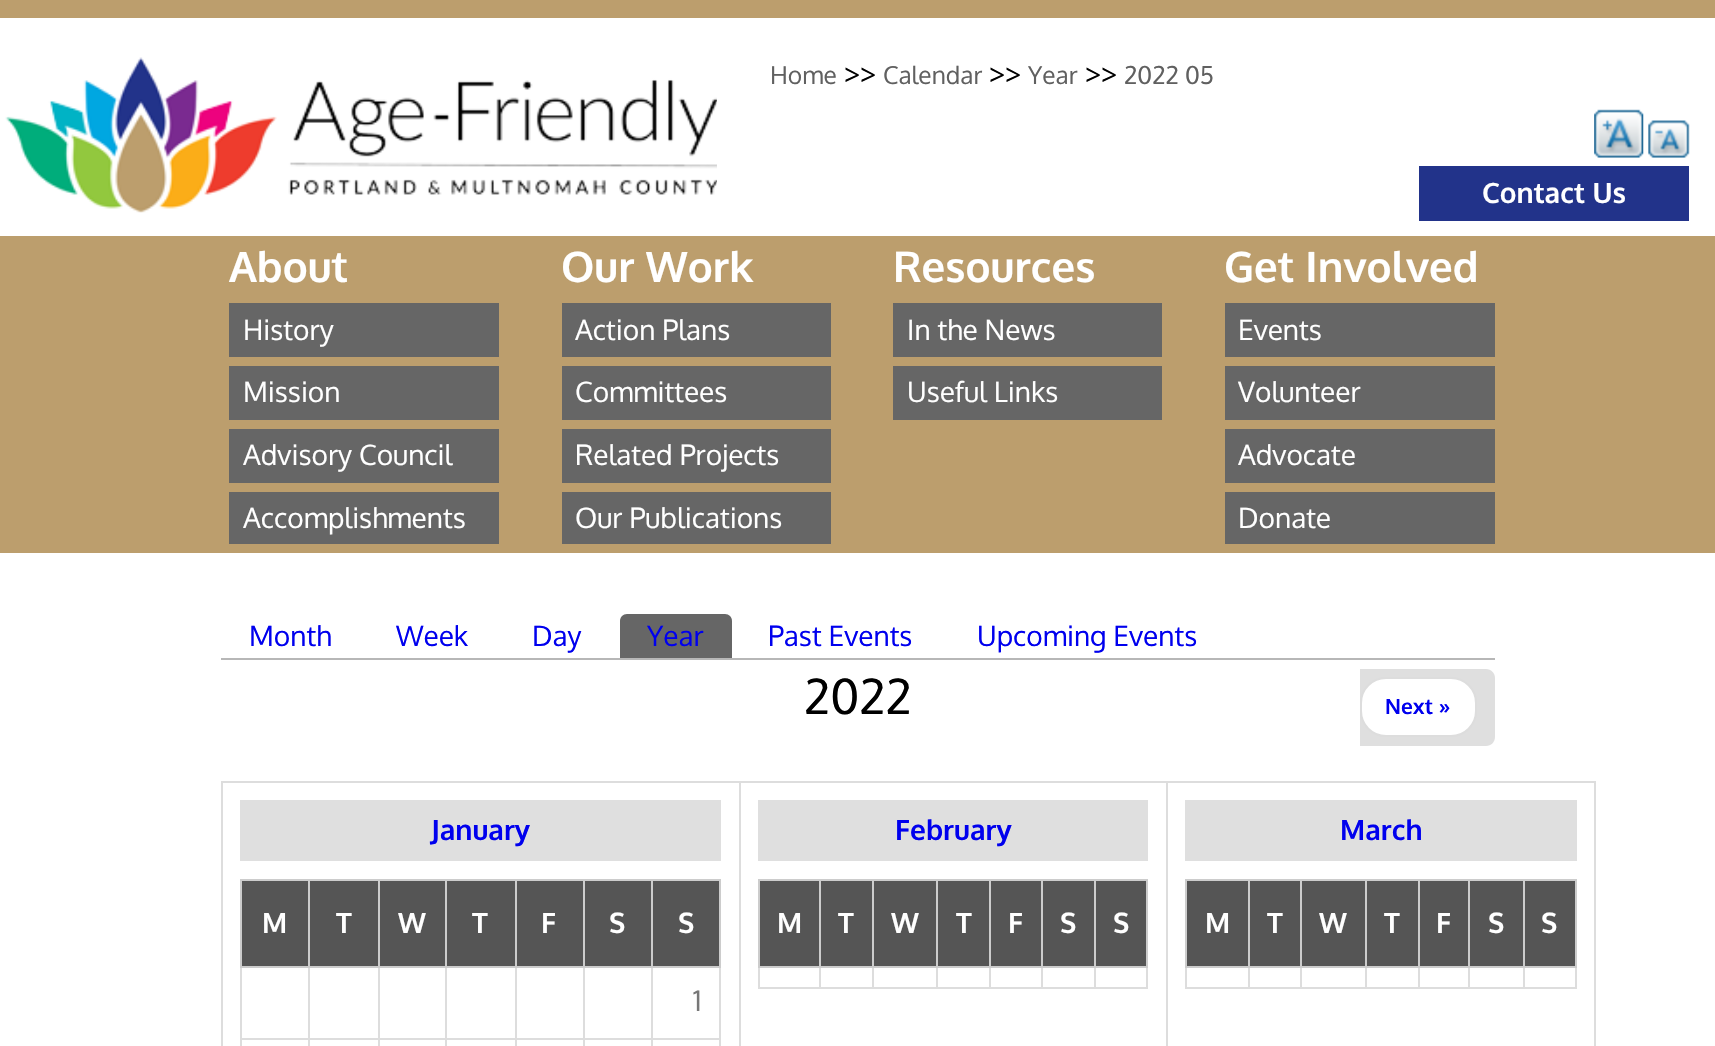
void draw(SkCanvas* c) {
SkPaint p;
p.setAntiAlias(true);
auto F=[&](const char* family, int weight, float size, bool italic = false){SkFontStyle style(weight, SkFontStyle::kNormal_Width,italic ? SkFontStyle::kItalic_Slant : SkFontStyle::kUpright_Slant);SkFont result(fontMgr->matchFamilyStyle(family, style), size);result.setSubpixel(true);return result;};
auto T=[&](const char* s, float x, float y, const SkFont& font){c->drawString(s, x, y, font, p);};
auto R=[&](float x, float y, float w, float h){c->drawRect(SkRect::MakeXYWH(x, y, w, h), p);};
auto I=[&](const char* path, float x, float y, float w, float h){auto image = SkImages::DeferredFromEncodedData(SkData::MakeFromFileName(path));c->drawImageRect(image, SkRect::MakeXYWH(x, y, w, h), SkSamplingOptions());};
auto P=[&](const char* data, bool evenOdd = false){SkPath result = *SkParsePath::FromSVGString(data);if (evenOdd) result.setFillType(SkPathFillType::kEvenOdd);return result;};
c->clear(0xffffffff);
p.setColor(0xffbc9e6d);
R(0,0,1715,18);
I("1.png",5,57,712,156);
auto f1 = F("Oxygen",400,24.5);
p.setColor(0xff606060);
T("Home",770,84,f1);
auto f2 = F("Oxygen",400,28);
p.setColor(0xff000000);
T(">>",844,84,f2);
p.setColor(0xff606060);
T("Calendar",883,84,f1);
p.setColor(0xff000000);
T(">>",989,84,f2);
p.setColor(0xff606060);
T("Year",1028,84,f1);
p.setColor(0xff000000);
T(">>",1085,84,f2);
p.setColor(0xff606060);
T("2022 05",1124,84,f1);
I("2.png",1594,109,50,49);
I("3.png",1648,120,42,38);
p.setColor(0xff22338a);
R(1419,166,270,55);
auto f3 = F("Oxygen",700,28);
p.setColor(0xffffffff);
T("Contact Us",1482,203,f3);
p.setColor(0xffbc9e6d);
R(0,236,1715,317);
auto f4 = F("Oxygen",700,42);
p.setColor(0xffffffff);
T("About",229,282,f4);
p.setColor(0xff666666);
R(229,303,270,54);
p.setColor(0xffffffff);
T("History",243,340,f2);
p.setColor(0xff666666);
R(229,366,270,54);
p.setColor(0xffffffff);
T("Mission",243,402,f2);
p.setColor(0xff666666);
R(229,429,270,54);
p.setColor(0xffffffff);
T("Advisory Council",243,465,f2);
p.setColor(0xff666666);
R(229,492,270,52);
p.setColor(0xffffffff);
T("Accomplishments",243,528,f2);
T("Our Work",561,282,f4);
p.setColor(0xff666666);
R(562,303,269,54);
p.setColor(0xffffffff);
T("Action Plans",575,340,f2);
p.setColor(0xff666666);
R(562,366,269,54);
p.setColor(0xffffffff);
T("Committees",575,402,f2);
p.setColor(0xff666666);
R(562,429,269,54);
p.setColor(0xffffffff);
T("Related Projects",575,465,f2);
p.setColor(0xff666666);
R(562,492,269,52);
p.setColor(0xffffffff);
T("Our Publications",575,528,f2);
T("Resources",893,282,f4);
p.setColor(0xff666666);
R(893,303,269,54);
p.setColor(0xffffffff);
T("In the News",907,340,f2);
p.setColor(0xff666666);
R(893,366,269,54);
p.setColor(0xffffffff);
T("Useful Links",907,402,f2);
T("Get Involved",1224,282,f4);
p.setColor(0xff666666);
R(1225,303,270,54);
p.setColor(0xffffffff);
T("Events",1238,340,f2);
p.setColor(0xff666666);
R(1225,366,270,54);
p.setColor(0xffffffff);
T("Volunteer",1238,402,f2);
p.setColor(0xff666666);
R(1225,429,270,54);
p.setColor(0xffffffff);
T("Advocate",1238,465,f2);
p.setColor(0xff666666);
R(1225,492,270,52);
p.setColor(0xffffffff);
T("Donate",1238,528,f2);
p.setColor(0xffb7b7b7);
R(221,658,1274,2);
p.setColor(0xff0000ee);
T("Month",249,646,f2);
T("Week",396,646,f2);
T("Day",532,646,f2);
p.setColor(0xff666666);
c->drawPath(P("M627 614h98c4 0 7 3 7 7v37h-112v-37c0-4 3-7 7-7z"),p);
p.setColor(0xff0000ee);
T("Year",647,646,f2);
T("Past Events",768,646,f2);
T("Upcoming Events",977,646,f2);
auto f5 = F("Oxygen",400,48);
p.setColor(0xff000000);
T("2022",804,714,f5);
p.setColor(0xffdfdfdf);
c->drawPath(P("M1360 669h126c5 0 9 4 9 9v59c0 5-4 9-9 9h-126z"),p);
p.setColor(0xffffffff);
c->drawRoundRect(SkRect::MakeXYWH(1361,678,115,58),25,25,p);
p.setStroke(true);
p.setStrokeWidth(2);
p.setColor(0xffdddddd);
c->drawRoundRect(SkRect::MakeXYWH(1361,678,115,58),25,25,p);
auto f6 = F("Oxygen",700,21);
p.setStroke(false);
p.setColor(0xff0000ee);
T("Next »",1385,714,f6);
p.setColor(0xffdddddd);
R(221,781,1375,2);
R(221,781,2,265);
R(739,781,2,265);
p.setColor(0xffdfdfdf);
R(240,800,481,61);
p.setColor(0xff0000ee);
T("January",431,840,f3);
p.setColor(0xffdddddd);
R(240,968,2,78);
p.setColor(0xff555555);
R(242,881,66,85);
p.setColor(0xffcccccc);
R(651,879,70,2);
p.setColor(0xffdddddd);
R(240,1038,481,2);
R(719,966,2,80);
p.setColor(0xffcccccc);
R(719,879,2,89);
p.setColor(0xffdddddd);
R(651,966,2,80);
p.setColor(0xffcccccc);
R(651,966,70,2);
R(651,879,2,89);
R(583,879,70,2);
p.setColor(0xffdddddd);
R(583,966,2,80);
p.setColor(0xffcccccc);
R(583,966,70,2);
R(583,879,2,89);
R(515,879,70,2);
p.setColor(0xffdddddd);
R(515,966,2,80);
p.setColor(0xffcccccc);
R(515,966,70,2);
R(515,879,2,89);
R(445,879,71,2);
p.setColor(0xffdddddd);
R(445,966,2,80);
p.setColor(0xffcccccc);
R(445,966,71,2);
R(445,879,2,89);
R(378,879,68,2);
p.setColor(0xffdddddd);
R(378,966,2,80);
p.setColor(0xffcccccc);
R(378,966,68,2);
R(378,879,2,89);
R(308,879,72,2);
p.setColor(0xffdddddd);
R(308,966,2,80);
p.setColor(0xffcccccc);
R(308,966,72,2);
R(308,879,2,89);
R(240,879,70,2);
R(240,966,70,2);
R(240,879,2,89);
p.setColor(0xffffffff);
T("M",262,933,f3);
p.setColor(0xff555555);
R(310,881,68,85);
p.setColor(0xffffffff);
T("T",336,933,f3);
p.setColor(0xff555555);
R(380,881,65,85);
p.setColor(0xffffffff);
T("W",398,933,f3);
p.setColor(0xff555555);
R(447,881,68,85);
p.setColor(0xffffffff);
T("T",472,933,f3);
p.setColor(0xff555555);
R(517,881,66,85);
p.setColor(0xffffffff);
T("F",541,933,f3);
p.setColor(0xff555555);
R(585,881,66,85);
p.setColor(0xffffffff);
T("S",609,933,f3);
p.setColor(0xff555555);
R(653,881,66,85);
p.setColor(0xffffffff);
T("S",678,933,f3);
p.setColor(0xff777777);
T("1",693,1011,f2);
p.setColor(0xffdddddd);
R(1166,781,2,265);
p.setColor(0xffdfdfdf);
R(758,800,390,61);
p.setColor(0xff0000ee);
T("February",895,840,f3);
p.setColor(0xffdddddd);
R(758,987,390,2);
R(758,968,2,21);
p.setColor(0xff555555);
R(760,881,59,85);
p.setColor(0xffcccccc);
R(1094,879,54,2);
p.setColor(0xffdddddd);
R(1146,966,2,23);
p.setColor(0xffcccccc);
R(1146,879,2,89);
p.setColor(0xffdddddd);
R(1094,966,2,23);
p.setColor(0xffcccccc);
R(1094,966,54,2);
R(1094,879,2,89);
R(1041,879,55,2);
p.setColor(0xffdddddd);
R(1041,966,2,23);
p.setColor(0xffcccccc);
R(1041,966,55,2);
R(1041,879,2,89);
R(989,879,54,2);
p.setColor(0xffdddddd);
R(989,966,2,23);
p.setColor(0xffcccccc);
R(989,966,54,2);
R(989,879,2,89);
R(936,879,55,2);
p.setColor(0xffdddddd);
R(936,966,2,23);
p.setColor(0xffcccccc);
R(936,966,55,2);
R(936,879,2,89);
R(872,879,66,2);
p.setColor(0xffdddddd);
R(872,966,2,23);
p.setColor(0xffcccccc);
R(872,966,66,2);
R(872,879,2,89);
R(819,879,54,2);
p.setColor(0xffdddddd);
R(819,966,2,23);
p.setColor(0xffcccccc);
R(819,966,54,2);
R(819,879,2,89);
R(758,879,63,2);
R(758,966,63,2);
R(758,879,2,89);
p.setColor(0xffffffff);
T("M",777,933,f3);
p.setColor(0xff555555);
R(821,881,51,85);
p.setColor(0xffffffff);
T("T",838,933,f3);
p.setColor(0xff555555);
R(874,881,62,85);
p.setColor(0xffffffff);
T("W",891,933,f3);
p.setColor(0xff555555);
R(938,881,51,85);
p.setColor(0xffffffff);
T("T",956,933,f3);
p.setColor(0xff555555);
R(991,881,50,85);
p.setColor(0xffffffff);
T("F",1008,933,f3);
p.setColor(0xff555555);
R(1043,881,51,85);
p.setColor(0xffffffff);
T("S",1060,933,f3);
p.setColor(0xff555555);
R(1096,881,50,85);
p.setColor(0xffffffff);
T("S",1113,933,f3);
p.setColor(0xffdddddd);
R(1594,781,2,265);
p.setColor(0xffdfdfdf);
R(1185,800,392,61);
p.setColor(0xff0000ee);
T("March",1340,840,f3);
p.setColor(0xffdddddd);
R(1185,987,392,2);
R(1185,968,2,21);
p.setColor(0xff555555);
R(1187,881,61,85);
p.setColor(0xffcccccc);
R(1523,879,54,2);
p.setColor(0xffdddddd);
R(1575,966,2,23);
p.setColor(0xffcccccc);
R(1575,879,2,89);
p.setColor(0xffdddddd);
R(1523,966,2,23);
p.setColor(0xffcccccc);
R(1523,966,54,2);
R(1523,879,2,89);
R(1468,879,56,2);
p.setColor(0xffdddddd);
R(1468,966,2,23);
p.setColor(0xffcccccc);
R(1468,966,56,2);
R(1468,879,2,89);
R(1418,879,52,2);
p.setColor(0xffdddddd);
R(1418,966,2,23);
p.setColor(0xffcccccc);
R(1418,966,52,2);
R(1418,879,2,89);
R(1365,879,54,2);
p.setColor(0xffdddddd);
R(1365,966,2,23);
p.setColor(0xffcccccc);
R(1365,966,54,2);
R(1365,879,2,89);
R(1300,879,67,2);
p.setColor(0xffdddddd);
R(1300,966,2,23);
p.setColor(0xffcccccc);
R(1300,966,67,2);
R(1300,879,2,89);
R(1248,879,54,2);
p.setColor(0xffdddddd);
R(1248,966,2,23);
p.setColor(0xffcccccc);
R(1248,966,54,2);
R(1248,879,2,89);
R(1185,879,65,2);
R(1185,966,65,2);
R(1185,879,2,89);
p.setColor(0xffffffff);
T("M",1205,933,f3);
p.setColor(0xff555555);
R(1250,881,50,85);
p.setColor(0xffffffff);
T("T",1267,933,f3);
p.setColor(0xff555555);
R(1302,881,63,85);
p.setColor(0xffffffff);
T("W",1319,933,f3);
p.setColor(0xff555555);
R(1367,881,51,85);
p.setColor(0xffffffff);
T("T",1384,933,f3);
p.setColor(0xff555555);
R(1420,881,48,85);
p.setColor(0xffffffff);
T("F",1436,933,f3);
p.setColor(0xff555555);
R(1470,881,53,85);
p.setColor(0xffffffff);
T("S",1488,933,f3);
p.setColor(0xff555555);
R(1525,881,50,85);
p.setColor(0xffffffff);
T("S",1541,933,f3);
}
